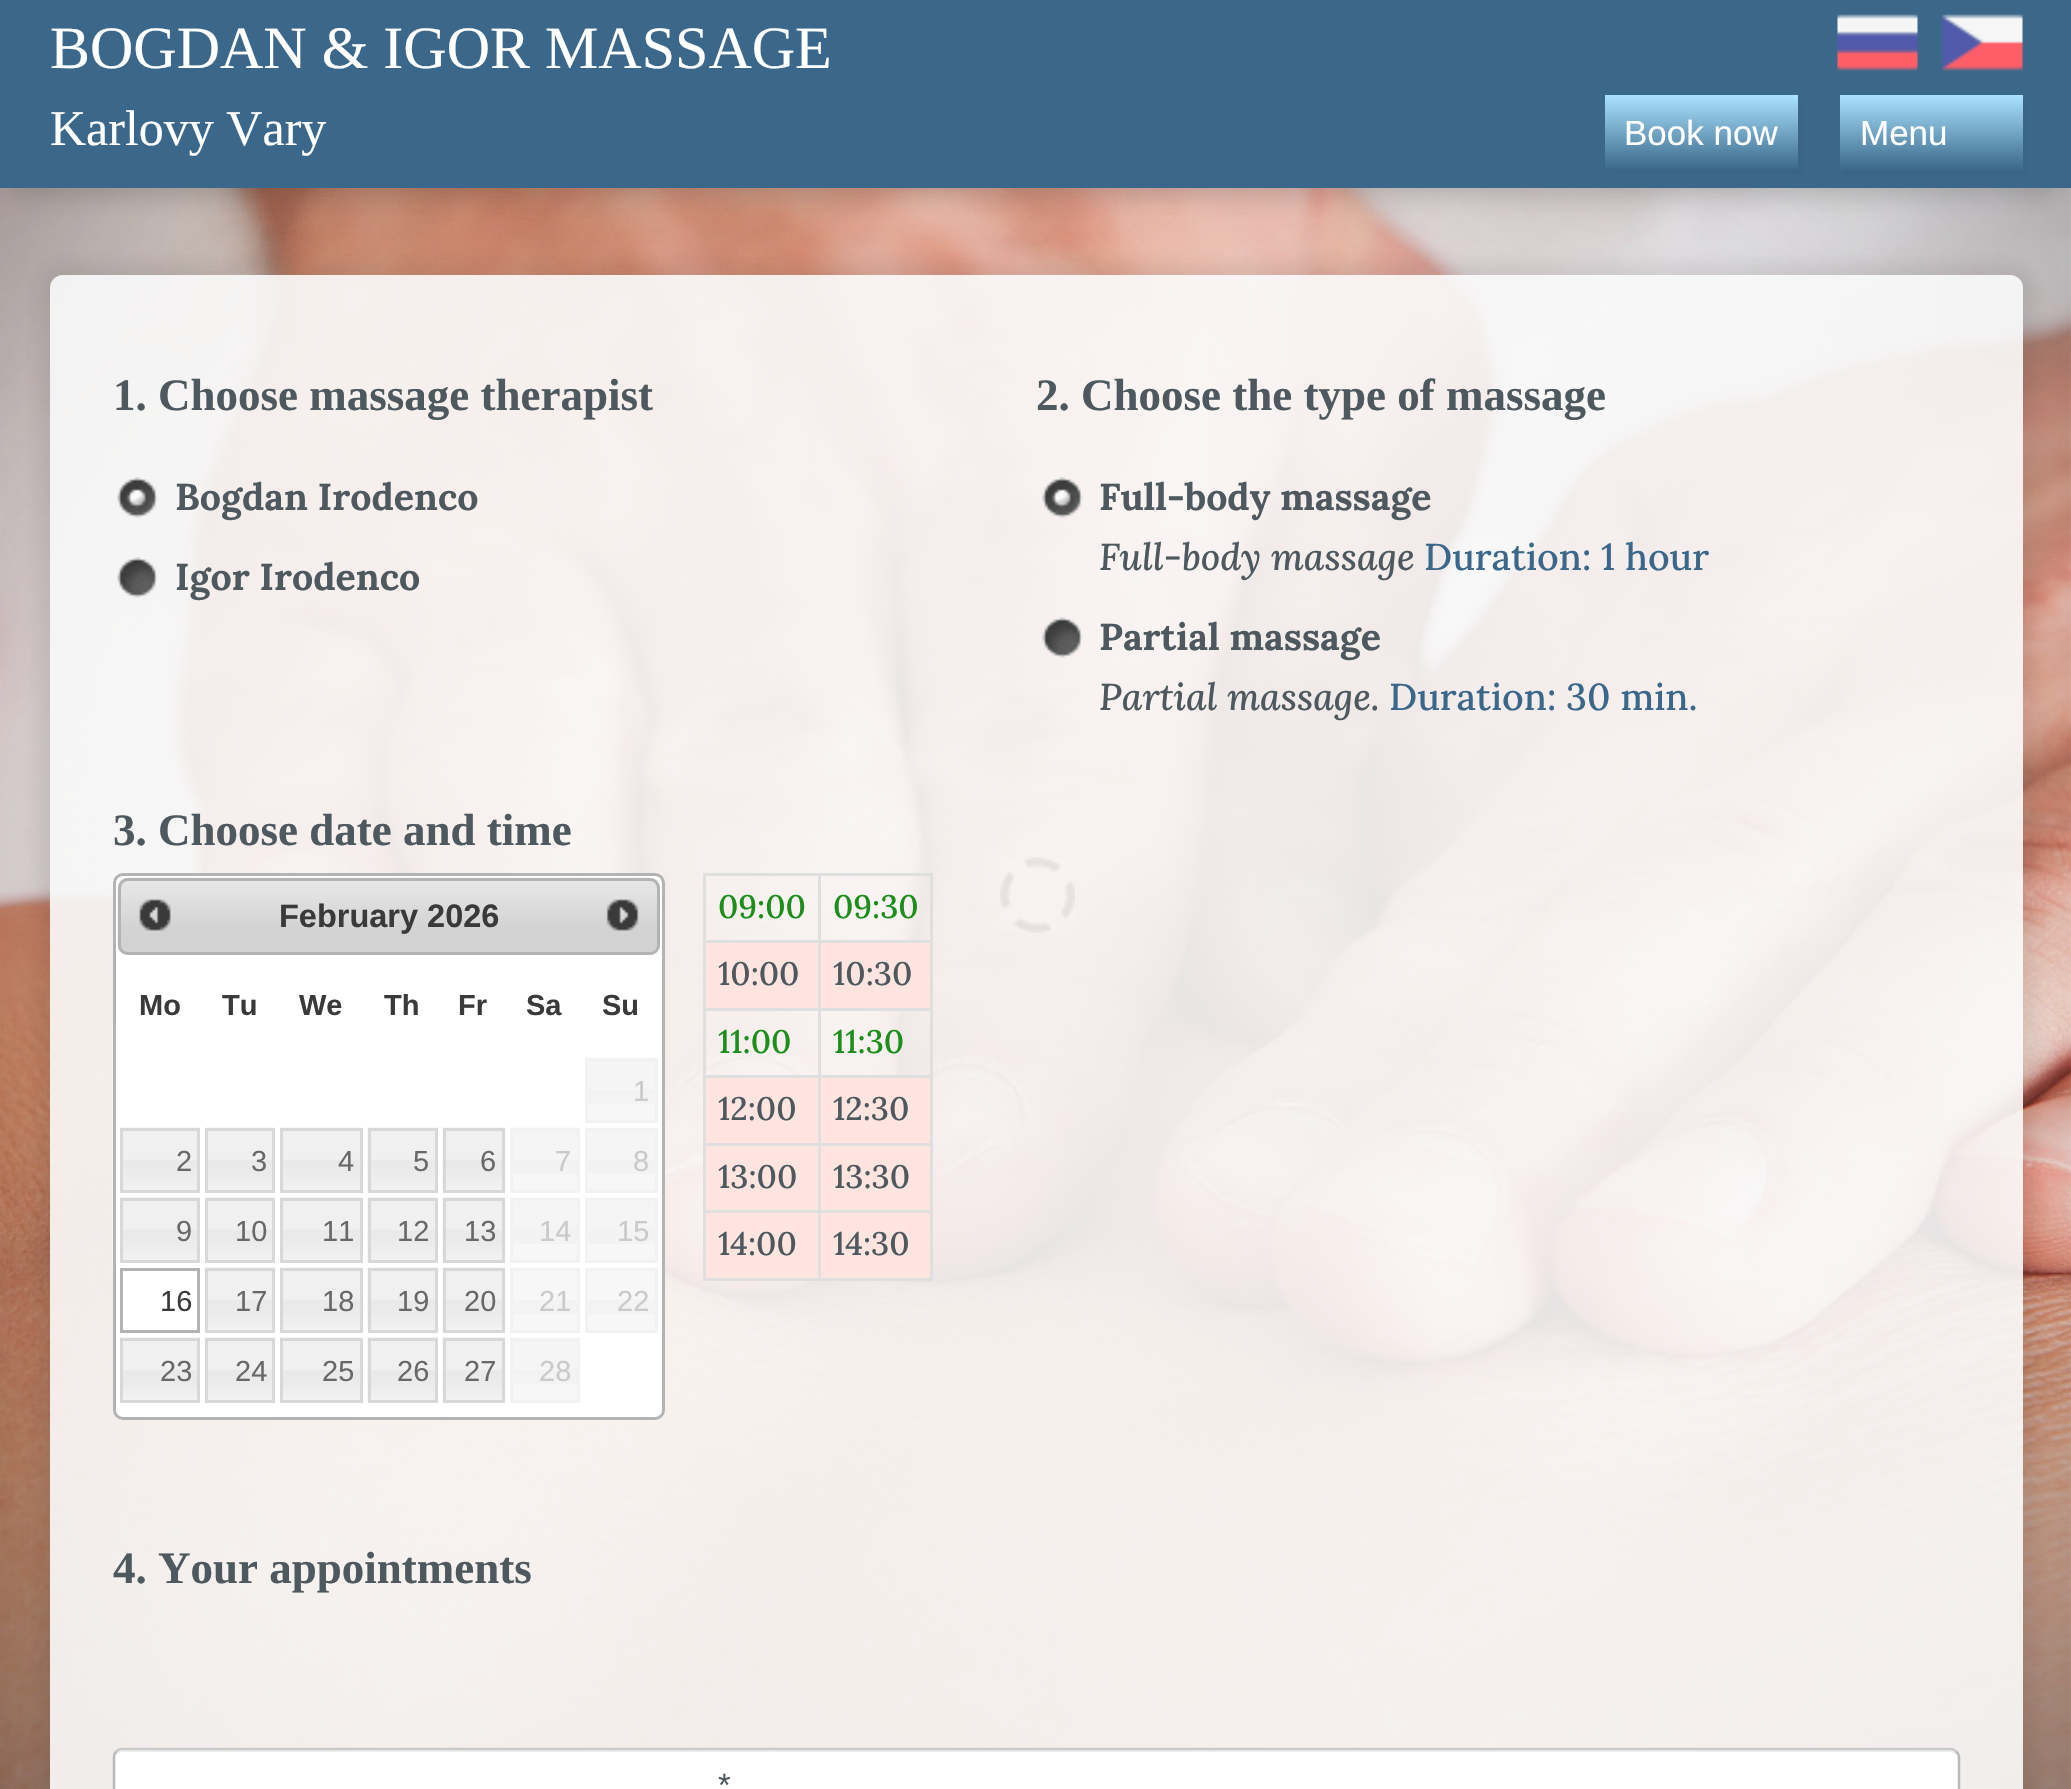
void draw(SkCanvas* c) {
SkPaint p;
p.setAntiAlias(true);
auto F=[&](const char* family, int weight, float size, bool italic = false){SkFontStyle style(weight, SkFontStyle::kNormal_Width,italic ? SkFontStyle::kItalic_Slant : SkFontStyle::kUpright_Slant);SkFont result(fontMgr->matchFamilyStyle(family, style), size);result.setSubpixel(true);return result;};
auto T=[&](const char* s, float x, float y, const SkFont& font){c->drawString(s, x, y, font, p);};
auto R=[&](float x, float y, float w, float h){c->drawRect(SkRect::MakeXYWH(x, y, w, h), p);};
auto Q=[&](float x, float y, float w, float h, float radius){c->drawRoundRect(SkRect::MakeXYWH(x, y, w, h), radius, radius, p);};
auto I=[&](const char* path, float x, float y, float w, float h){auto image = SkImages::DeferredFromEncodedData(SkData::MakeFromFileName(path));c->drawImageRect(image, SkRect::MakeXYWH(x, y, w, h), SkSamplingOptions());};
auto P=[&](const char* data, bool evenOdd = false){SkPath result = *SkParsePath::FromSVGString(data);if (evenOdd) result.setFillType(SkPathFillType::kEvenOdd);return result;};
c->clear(0xffffffff);
I("1.png",0,188,2071,1601);
p.setColor(0x331c1c1c);
p.setMaskFilter(SkMaskFilter::MakeBlur(kNormal_SkBlurStyle, 12.5));
c->drawRect(SkRect::MakeXYWH(13,38,2042,157),p);
p.setMaskFilter(nullptr);
p.setColor(0xff3b688a);
R(0,0,2071,188);
auto f1 = F("Liberation Serif",400,60);
p.setColor(0xffffffff);
T("BOGDAN & IGOR MASSAGE",50,68,f1);
I("2.png",1837,14,81,57);
I("3.png",1942,14,81,57);
auto f2 = F("Liberation Serif",400,50);
T("Karlovy Vary",50,145,f2);
p.setColor(0xff3a6586);
c->drawPath(P("M1610 170v5h193v-75h-5v70z"),p);
{
const SkColor colors[] = {0xffaae2ff,0xff3b688a};
const float stops[] = {0,1};
const SkPoint ends[] = {{1701,95}, {1701,170}};
p.setShader(SkGradientShader::MakeLinear(ends, colors, stops, 2, SkTileMode::kClamp));
p.setAlpha(255);
}
R(1605,95,193,73);
auto f3 = F("Liberation Sans",400,35);
p.setShader(nullptr);
p.setColor(0xffffffff);
T("Book now",1624,145,f3);
p.setColor(0xff3a6586);
c->drawPath(P("M1845 170v5h183v-75h-6v70z"),p);
{
const SkColor colors[] = {0xffaae2ff,0xff3b688a};
const float stops[] = {0,1};
const SkPoint ends[] = {{1931,95}, {1931,170}};
p.setShader(SkGradientShader::MakeLinear(ends, colors, stops, 2, SkTileMode::kClamp));
p.setAlpha(255);
}
R(1840,95,183,75);
p.setShader(nullptr);
p.setColor(0xffffffff);
T("Menu",1860,145,f3);
c->save();
c->clipPath(P("M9 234h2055v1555h-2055zm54 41h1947c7 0 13 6 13 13v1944c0 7-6 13-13 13h-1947c-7 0-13-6-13-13v-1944c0-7 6-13 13-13z",true),true);
p.setColor(0x1a1c1c1c);
p.setMaskFilter(SkMaskFilter::MakeBlur(kNormal_SkBlurStyle, 10));
c->drawRoundRect(SkRect::MakeXYWH(40,265,1993,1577),23,23,p);
p.setMaskFilter(nullptr);
c->restore();
p.setColor(0xe6f9f9f9);
Q(50,275,1973,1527,13);
auto f4 = F("Liberation Serif",700,45);
p.setColor(0xff4e595f);
T("1. Choose massage therapist",113,410,f4);
I("4.png",117,477,41,41);
auto f5 = F("Lora",700,37.5);
T("Bogdan Irodenco",175,510,f5);
I("5.png",117,557,41,41);
T("Igor Irodenco",175,590,f5);
T("2. Choose the type of massage",1036,410,f4);
I("6.png",1042,477,41,41);
T("Full-body massage",1099,510,f5);
auto f6 = F("Lora",500,37.5,true);
T("Full-body massage",1099,570,f6);
auto f7 = F("Lora",500,37.5);
p.setColor(0xff3b688a);
T("Duration: 1 hour",1424,570,f7);
I("7.png",1042,617,41,41);
p.setColor(0xff4e595f);
T("Partial massage",1099,650,f5);
T("Partial massage.",1099,710,f6);
p.setColor(0xff3b688a);
T("Duration: 30 min.",1389,710,f7);
p.setColor(0xff4e595f);
T("3. Choose date and time",113,845,f4);
p.setColor(0xffffffff);
c->drawRoundRect(SkRect::MakeXYWH(114.5,874.5,549,544),8.5,8.5,p);
p.setStroke(true);
p.setStrokeWidth(3);
p.setColor(0xffb3b3b3);
c->drawRoundRect(SkRect::MakeXYWH(114.5,874.5,549,544),8.5,8.5,p);
p.setStroke(false);
p.setColor(0x40ffffff);
R(112,1020,1,250);
I("8.png",117,877,543,78);
p.setStroke(true);
p.setColor(0xffb3b3b3);
c->drawRoundRect(SkRect::MakeXYWH(119.5,879.5,539,74),8.5,8.5,p);
I("9.png",139,899,32,32);
auto f8 = F("Liberation Sans",700,32.5);
p.setStroke(false);
p.setColor(0xff3a3a3a);
T("February 2026",279,927,f8);
I("10.png",606,899,33,32);
auto f9 = F("Liberation Sans",700,29);
T("Mo",139,1015,f9);
T("Tu",222,1015,f9);
T("We",299,1015,f9);
T("Th",384,1015,f9);
T("Fr",458,1015,f9);
T("Sa",526,1015,f9);
T("Su",602,1015,f9);
p.setColor(0xfff7f7f7);
R(588,1061,67,59);
I("11.png",585,1057,72,47);
p.setStroke(true);
p.setColor(0xfff2f2f2);
c->drawRect(SkRect::MakeXYWH(586.5,1059.5,70,62),p);
auto f10 = F("Liberation Sans",400,29);
p.setStroke(false);
p.setColor(0xffcacaca);
T("1",633,1101,f10);
I("12.png",120,1127,80,63);
p.setStroke(true);
p.setColor(0xffd8d8d8);
c->drawRect(SkRect::MakeXYWH(121.5,1129.5,77,62),p);
p.setStroke(false);
p.setColor(0xff686868);
T("2",176,1171,f10);
I("13.png",205,1127,70,63);
p.setStroke(true);
p.setColor(0xffd8d8d8);
c->drawRect(SkRect::MakeXYWH(206.5,1129.5,67,62),p);
p.setStroke(false);
p.setColor(0xff686868);
T("3",251,1171,f10);
I("14.png",280,1127,83,63);
p.setStroke(true);
p.setColor(0xffd8d8d8);
c->drawRect(SkRect::MakeXYWH(281.5,1129.5,80,62),p);
p.setStroke(false);
p.setColor(0xff686868);
T("4",338,1171,f10);
I("15.png",367,1127,71,66);
p.setStroke(true);
p.setColor(0xffd8d8d8);
c->drawRect(SkRect::MakeXYWH(369.5,1129.5,67,62),p);
p.setStroke(false);
p.setColor(0xff686868);
T("5",413,1171,f10);
I("16.png",442,1127,63,66);
p.setStroke(true);
p.setColor(0xffd8d8d8);
c->drawRect(SkRect::MakeXYWH(444.5,1129.5,59,62),p);
p.setStroke(false);
p.setColor(0xff686868);
T("6",480,1171,f10);
p.setColor(0xfff7f7f7);
R(513,1131,64,59);
I("17.png",510,1127,70,47);
p.setStroke(true);
p.setColor(0xfff2f2f2);
c->drawRect(SkRect::MakeXYWH(511.5,1129.5,67,62),p);
p.setStroke(false);
p.setColor(0xffcacaca);
T("7",555,1171,f10);
p.setColor(0xfff7f7f7);
R(588,1131,67,59);
I("11.png",585,1127,72,47);
p.setStroke(true);
p.setColor(0xfff2f2f2);
c->drawRect(SkRect::MakeXYWH(586.5,1129.5,70,62),p);
p.setStroke(false);
p.setColor(0xffcacaca);
T("8",633,1171,f10);
I("12.png",120,1197,80,63);
p.setStroke(true);
p.setColor(0xffd8d8d8);
c->drawRect(SkRect::MakeXYWH(121.5,1199.5,77,62),p);
p.setStroke(false);
p.setColor(0xff686868);
T("9",176,1241,f10);
I("13.png",205,1197,70,63);
p.setStroke(true);
p.setColor(0xffd8d8d8);
c->drawRect(SkRect::MakeXYWH(206.5,1199.5,67,62),p);
p.setStroke(false);
p.setColor(0xff686868);
T("10",235,1241,f10);
I("14.png",280,1197,83,63);
p.setStroke(true);
p.setColor(0xffd8d8d8);
c->drawRect(SkRect::MakeXYWH(281.5,1199.5,80,62),p);
p.setStroke(false);
p.setColor(0xff686868);
T("11",322,1241,f10);
I("15.png",367,1197,71,66);
p.setStroke(true);
p.setColor(0xffd8d8d8);
c->drawRect(SkRect::MakeXYWH(369.5,1199.5,67,62),p);
p.setStroke(false);
p.setColor(0xff686868);
T("12",397,1241,f10);
I("16.png",442,1197,63,66);
p.setStroke(true);
p.setColor(0xffd8d8d8);
c->drawRect(SkRect::MakeXYWH(444.5,1199.5,59,62),p);
p.setStroke(false);
p.setColor(0xff686868);
T("13",464,1241,f10);
p.setColor(0xfff7f7f7);
R(513,1201,64,59);
I("17.png",510,1197,70,47);
p.setStroke(true);
p.setColor(0xfff2f2f2);
c->drawRect(SkRect::MakeXYWH(511.5,1199.5,67,62),p);
p.setStroke(false);
p.setColor(0xffcacaca);
T("14",539,1241,f10);
p.setColor(0xfff7f7f7);
R(588,1201,67,59);
I("11.png",585,1197,72,47);
p.setStroke(true);
p.setColor(0xfff2f2f2);
c->drawRect(SkRect::MakeXYWH(586.5,1199.5,70,62),p);
p.setStroke(false);
p.setColor(0xffcacaca);
T("15",617,1241,f10);
p.setStroke(true);
p.setColor(0xffb3b3b3);
c->drawRect(SkRect::MakeXYWH(121.5,1269.5,77,62),p);
p.setStroke(false);
p.setColor(0xff3a3a3a);
T("16",160,1311,f10);
I("13.png",205,1267,70,63);
p.setStroke(true);
p.setColor(0xffd8d8d8);
c->drawRect(SkRect::MakeXYWH(206.5,1269.5,67,62),p);
p.setStroke(false);
p.setColor(0xff686868);
T("17",235,1311,f10);
I("14.png",280,1267,83,63);
p.setStroke(true);
p.setColor(0xffd8d8d8);
c->drawRect(SkRect::MakeXYWH(281.5,1269.5,80,62),p);
p.setStroke(false);
p.setColor(0xff686868);
T("18",322,1311,f10);
I("15.png",367,1267,71,66);
p.setStroke(true);
p.setColor(0xffd8d8d8);
c->drawRect(SkRect::MakeXYWH(369.5,1269.5,67,62),p);
p.setStroke(false);
p.setColor(0xff686868);
T("19",397,1311,f10);
I("16.png",442,1267,63,66);
p.setStroke(true);
p.setColor(0xffd8d8d8);
c->drawRect(SkRect::MakeXYWH(444.5,1269.5,59,62),p);
p.setStroke(false);
p.setColor(0xff686868);
T("20",464,1311,f10);
p.setColor(0xfff7f7f7);
R(513,1271,64,59);
p.setColor(0xfff3f3f3);
R(513,1300,64,14);
p.setStroke(true);
p.setColor(0xfff2f2f2);
c->drawRect(SkRect::MakeXYWH(511.5,1269.5,67,62),p);
p.setStroke(false);
p.setColor(0xffcacaca);
T("21",539,1311,f10);
p.setColor(0xfff7f7f7);
R(588,1271,67,59);
p.setColor(0xfff3f3f3);
R(588,1300,67,14);
p.setStroke(true);
p.setColor(0xfff2f2f2);
c->drawRect(SkRect::MakeXYWH(586.5,1269.5,70,62),p);
p.setStroke(false);
p.setColor(0xffcacaca);
T("22",617,1311,f10);
I("12.png",120,1337,80,63);
p.setStroke(true);
p.setColor(0xffd8d8d8);
c->drawRect(SkRect::MakeXYWH(121.5,1339.5,77,62),p);
p.setStroke(false);
p.setColor(0xff686868);
T("23",160,1381,f10);
I("13.png",205,1337,70,63);
p.setStroke(true);
p.setColor(0xffd8d8d8);
c->drawRect(SkRect::MakeXYWH(206.5,1339.5,67,62),p);
p.setStroke(false);
p.setColor(0xff686868);
T("24",235,1381,f10);
I("14.png",280,1337,83,63);
p.setStroke(true);
p.setColor(0xffd8d8d8);
c->drawRect(SkRect::MakeXYWH(281.5,1339.5,80,62),p);
p.setStroke(false);
p.setColor(0xff686868);
T("25",322,1381,f10);
I("15.png",367,1337,71,66);
p.setStroke(true);
p.setColor(0xffd8d8d8);
c->drawRect(SkRect::MakeXYWH(369.5,1339.5,67,62),p);
p.setStroke(false);
p.setColor(0xff686868);
T("26",397,1381,f10);
I("16.png",442,1337,63,66);
p.setStroke(true);
p.setColor(0xffd8d8d8);
c->drawRect(SkRect::MakeXYWH(444.5,1339.5,59,62),p);
p.setStroke(false);
p.setColor(0xff686868);
T("27",464,1381,f10);
p.setColor(0xfff7f7f7);
R(513,1341,64,59);
I("17.png",510,1337,70,47);
p.setStroke(true);
p.setColor(0xfff2f2f2);
c->drawRect(SkRect::MakeXYWH(511.5,1339.5,67,62),p);
p.setStroke(false);
p.setColor(0xffcacaca);
T("28",539,1381,f10);
p.setColor(0xffdfdfdf);
R(703,873,230,3);
R(930,873,3,407);
R(703,1278,230,3);
R(703,873,3,407);
R(818,1210,3,70);
R(818,1210,115,3);
R(818,1143,3,70);
R(818,1143,115,3);
R(818,1075,3,70);
R(818,1075,115,3);
R(818,1008,3,70);
R(818,1008,115,3);
R(818,940,3,70);
R(818,940,115,3);
R(818,873,3,70);
R(703,940,117,3);
auto f11 = F("Lora",500,32.5);
p.setColor(0xff1c8e1c);
T("09:00",718,918,f11);
T("09:30",833,918,f11);
p.setColor(0xffffe4e0);
R(706,943,112,65);
p.setColor(0xffdfdfdf);
R(703,1008,117,3);
p.setColor(0xff4e595f);
T("10:00",718,985,f11);
p.setColor(0xffffe4e0);
R(821,943,109,65);
p.setColor(0xff4e595f);
T("10:30",833,985,f11);
p.setColor(0xffdfdfdf);
R(703,1075,117,3);
p.setColor(0xff1c8e1c);
T("11:00",718,1053,f11);
T("11:30",833,1053,f11);
p.setColor(0xffffe4e0);
R(706,1078,112,65);
p.setColor(0xffdfdfdf);
R(703,1143,117,3);
p.setColor(0xff4e595f);
T("12:00",718,1120,f11);
p.setColor(0xffffe4e0);
R(821,1078,109,65);
p.setColor(0xff4e595f);
T("12:30",833,1120,f11);
p.setColor(0xffffe4e0);
R(706,1146,112,64);
p.setColor(0xffdfdfdf);
R(703,1210,117,3);
p.setColor(0xff4e595f);
T("13:00",718,1188,f11);
p.setColor(0xffffe4e0);
R(821,1146,109,64);
p.setColor(0xff4e595f);
T("13:30",833,1188,f11);
p.setColor(0xffffe4e0);
R(706,1213,112,65);
p.setColor(0xff4e595f);
T("14:00",718,1255,f11);
p.setColor(0xffffe4e0);
R(821,1213,109,65);
p.setColor(0xff4e595f);
T("14:30",833,1255,f11);
T("4. Your appointments",113,1583,f4);
p.setColor(0xffffffff);
Q(113,1748,1847,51,10);
p.setColor(0xffeeeeee);
c->drawPath(P("M122 1752h1828c4 0 8 4 8 8c0-5-2-10-8-10h-1827c-6 0-8 5-8 10c0-4 3-8 7-8z"),p);
p.setStroke(true);
p.setStrokeWidth(2.5);
p.setColor(0xffcacaca);
c->drawPath(P("M116.5 1751.5c1.5-2 3.5-2.5 6-2.5h1827.5c2.5 0 4.5 .5 6 2.5"),p);
p.setColor(0xffbababa);
c->drawPath(P("M1956 1751.5c2 1.5 3 3.5 3 6v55c0 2.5-1 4.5-3 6"),p);
c->drawPath(P("M116.5 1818.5c-2-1.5-2.5-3.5-2.5-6v-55c0-2.5 .5-4.5 2.5-6"),p);
auto f12 = F("Liberation Sans",400,32.5);
p.setStroke(false);
p.setColor(0xff4e595f);
T("*",718,1796,f12);
I("18.png",1000,857,75,76);
}
